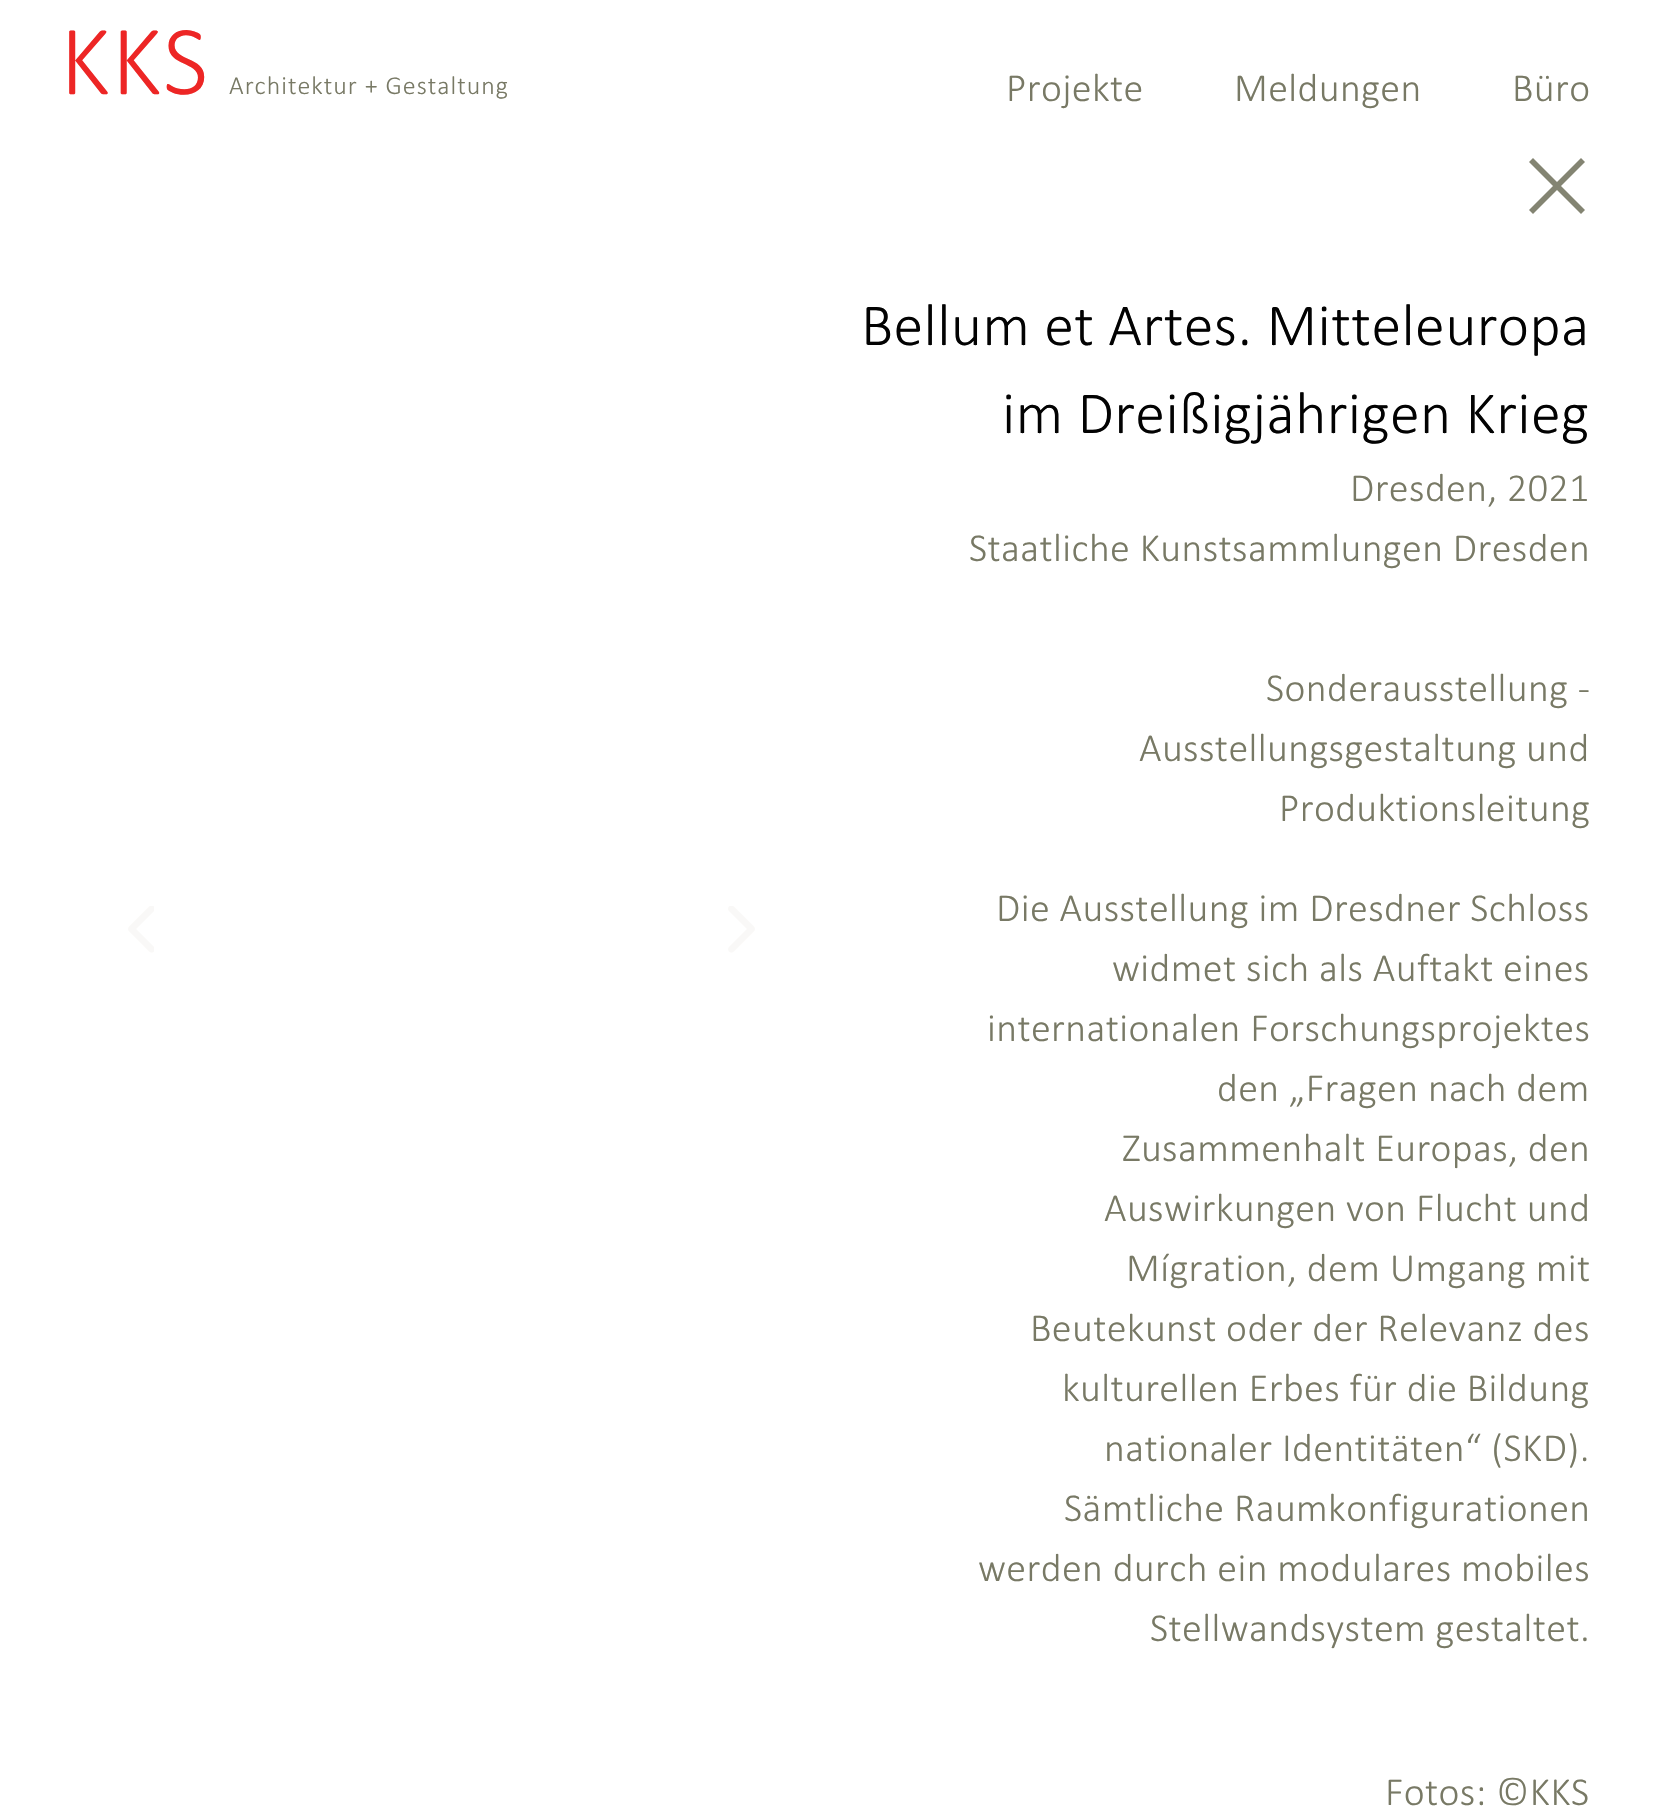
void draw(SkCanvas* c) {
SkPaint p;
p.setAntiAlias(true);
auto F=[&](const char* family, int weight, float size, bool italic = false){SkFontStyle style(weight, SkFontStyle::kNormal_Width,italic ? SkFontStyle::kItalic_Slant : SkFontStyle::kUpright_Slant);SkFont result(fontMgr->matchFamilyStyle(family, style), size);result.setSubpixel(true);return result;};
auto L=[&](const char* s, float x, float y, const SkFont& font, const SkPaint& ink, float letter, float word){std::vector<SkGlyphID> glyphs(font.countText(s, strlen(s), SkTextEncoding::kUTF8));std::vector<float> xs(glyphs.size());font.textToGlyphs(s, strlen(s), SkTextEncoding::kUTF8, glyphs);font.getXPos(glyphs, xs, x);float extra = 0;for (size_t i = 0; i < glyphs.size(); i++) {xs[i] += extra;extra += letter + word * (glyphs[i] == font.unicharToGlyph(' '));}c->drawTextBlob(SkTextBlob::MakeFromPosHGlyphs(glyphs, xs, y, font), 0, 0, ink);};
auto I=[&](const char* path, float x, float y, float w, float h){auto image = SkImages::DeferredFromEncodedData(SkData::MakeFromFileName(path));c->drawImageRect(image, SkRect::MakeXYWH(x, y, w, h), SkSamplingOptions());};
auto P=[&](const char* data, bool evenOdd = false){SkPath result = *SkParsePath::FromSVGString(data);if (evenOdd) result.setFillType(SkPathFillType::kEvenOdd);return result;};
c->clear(0xffffffff);
auto f1 = F("Calibri",300,100);
p.setColor(0xffed2625);
L("KKS",60,94,f1,p,1,0);
auto f2 = F("Calibri",300,26);
p.setColor(0xff787965);
L("Architektur + Gestaltung",229,94,f2,p,1,0);
auto f3 = F("Calibri",300,40);
L("Projekte",1006,101,f3,p,.4,0);
L("Meldungen",1234,101,f3,p,.4,0);
L("Büro",1512,101,f3,p,.4,0);
I("1.png",128,906,26,47);
I("2.png",728,906,27,47);
p.setColor(0xff838472);
c->drawPath(P("M1529 162l4-4l24 24l24-24l4 4l-24 24l24 24l-4 4l-24-24l-24 24l-4-4l24-24z"),p);
auto f4 = F("Calibri",300,60);
p.setColor(0xff020202);
L("Bellum et Artes. Mitteleuropa",861,345,f4,p,.4,0);
L("im Dreißigjährigen Krieg",1002,433,f4,p,.4,0);
p.setColor(0xff787965);
L("Dresden, 2021",1350,501,f3,p,.4,0);
L("Staatliche Kunstsammlungen Dresden",969,561,f3,p,.4,0);
L("Sonderausstellung -",1266,701,f3,p,.4,0);
L("Ausstellungsgestaltung und",1139,761,f3,p,.4,0);
L("Produktionsleitung",1279,821,f3,p,.4,0);
L("Die Ausstellung im Dresdner Schloss",996,921,f3,p,.4,0);
L("widmet sich als Auftakt eines",1112,981,f3,p,.4,0);
L("internationalen Forschungsprojektes",987,1041,f3,p,.4,0);
L("den „Fragen nach dem",1217,1101,f3,p,.4,0);
L("Zusammenhalt Europas, den",1122,1161,f3,p,.4,0);
L("Auswirkungen von Flucht und",1104,1221,f3,p,.4,0);
L("Mígration, dem Umgang mit",1126,1281,f3,p,.4,0);
L("Beutekunst oder der Relevanz des",1030,1341,f3,p,.4,0);
L("kulturellen Erbes für die Bildung",1062,1401,f3,p,.4,0);
L("nationaler Identitäten“ (SKD).",1104,1461,f3,p,.4,0);
L("Sämtliche Raumkonfigurationen",1064,1521,f3,p,.4,0);
L("werden durch ein modulares mobiles",978,1581,f3,p,.4,0);
L("Stellwandsystem gestaltet.",1150,1641,f3,p,.4,0);
L("Fotos: ©KKS",1385,1805,f3,p,.4,0);
}
